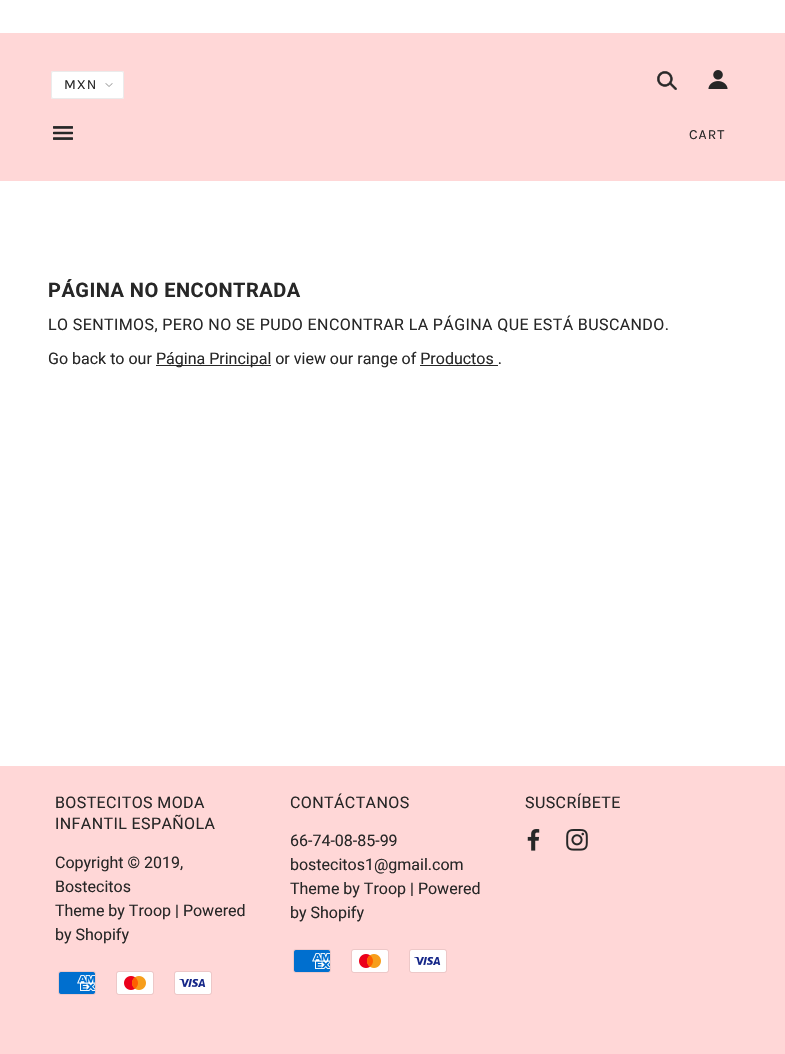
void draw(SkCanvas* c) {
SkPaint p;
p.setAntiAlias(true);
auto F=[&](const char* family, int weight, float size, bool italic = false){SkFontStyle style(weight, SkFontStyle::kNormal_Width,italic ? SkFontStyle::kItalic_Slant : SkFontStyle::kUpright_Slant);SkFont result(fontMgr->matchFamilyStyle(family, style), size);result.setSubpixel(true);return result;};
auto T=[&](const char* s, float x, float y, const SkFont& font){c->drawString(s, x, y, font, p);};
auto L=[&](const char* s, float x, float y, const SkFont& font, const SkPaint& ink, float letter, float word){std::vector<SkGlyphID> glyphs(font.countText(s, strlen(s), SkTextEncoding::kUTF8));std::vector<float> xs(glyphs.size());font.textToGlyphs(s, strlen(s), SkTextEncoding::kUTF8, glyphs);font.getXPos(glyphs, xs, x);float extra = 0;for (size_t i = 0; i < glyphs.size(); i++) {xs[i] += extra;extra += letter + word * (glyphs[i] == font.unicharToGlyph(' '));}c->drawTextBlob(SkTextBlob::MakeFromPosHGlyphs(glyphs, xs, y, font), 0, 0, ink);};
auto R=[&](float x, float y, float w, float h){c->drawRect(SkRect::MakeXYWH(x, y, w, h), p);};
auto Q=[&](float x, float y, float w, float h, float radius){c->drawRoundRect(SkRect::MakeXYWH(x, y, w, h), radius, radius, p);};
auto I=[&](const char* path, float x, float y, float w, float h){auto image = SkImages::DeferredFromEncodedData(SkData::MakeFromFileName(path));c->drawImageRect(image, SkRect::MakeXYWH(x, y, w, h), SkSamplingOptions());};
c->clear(0xffffffff);
p.setColor(0xffffd7d7);
R(0,33,785,148);
p.setColor(0xffffffff);
Q(51,71,73,28,2);
I("1.png",105,83,8,4);
p.setStroke(true);
p.setStrokeWidth(1);
p.setColor(0xffebebeb);
c->drawRoundRect(SkRect::MakeXYWH(51.5,71.5,72,27),1.5,1.5,p);
auto f1 = F("Karla",400,14);
p.setStroke(false);
p.setColor(0xff272727);
L("MXN",64,89,f1,p,1,0);
I("2.png",657,71,20,19);
I("3.png",708,70,20,19);
I("4.png",53,126,20,14);
L("CART",689,139,f1,p,1,0);
auto f2 = F("Roboto",700,20);
L("PÁGINA NO ENCONTRADA",48,297,f2,p,.5,0);
auto f3 = F("Roboto",400,16);
L("LO SENTIMOS, PERO NO SE PUDO ENCONTRAR LA PÁGINA QUE ESTÁ BUSCANDO.",48,330,f3,p,.4,0);
T("Go back to our",48,364,f3);
R(156,365,115,1);
T("Página Principal or view our range of Productos .",156,364,f3);
R(420,365,78,1);
p.setColor(0xffffd7d7);
R(0,766,785,288);
p.setColor(0xff272727);
L("BOSTECITOS MODA",55,808,f3,p,.4,0);
L("INFANTIL ESPAÑOLA",55,829,f3,p,.4,0);
T("Copyright © 2019,",55,868,f3);
T("Bostecitos",55,892,f3);
T("Theme by Troop | Powered",55,916,f3);
T("by Shopify",55,940,f3);
I("5.png",58,971,38,24);
I("6.png",116,971,38,24);
I("7.png",174,971,38,24);
L("CONTÁCTANOS",290,808,f3,p,.4,0);
T("66-74-08-85-99",290,846,f3);
T("bostecitos1@gmail.com",290,870,f3);
T("Theme by Troop | Powered",290,894,f3);
T("by Shopify",290,918,f3);
I("5.png",293,949,38,24);
I("6.png",351,949,38,24);
I("7.png",409,949,38,24);
L("SUSCRÍBETE",525,808,f3,p,.4,0);
I("8.png",527,829,13,22);
I("9.png",566,829,22,22);
}
